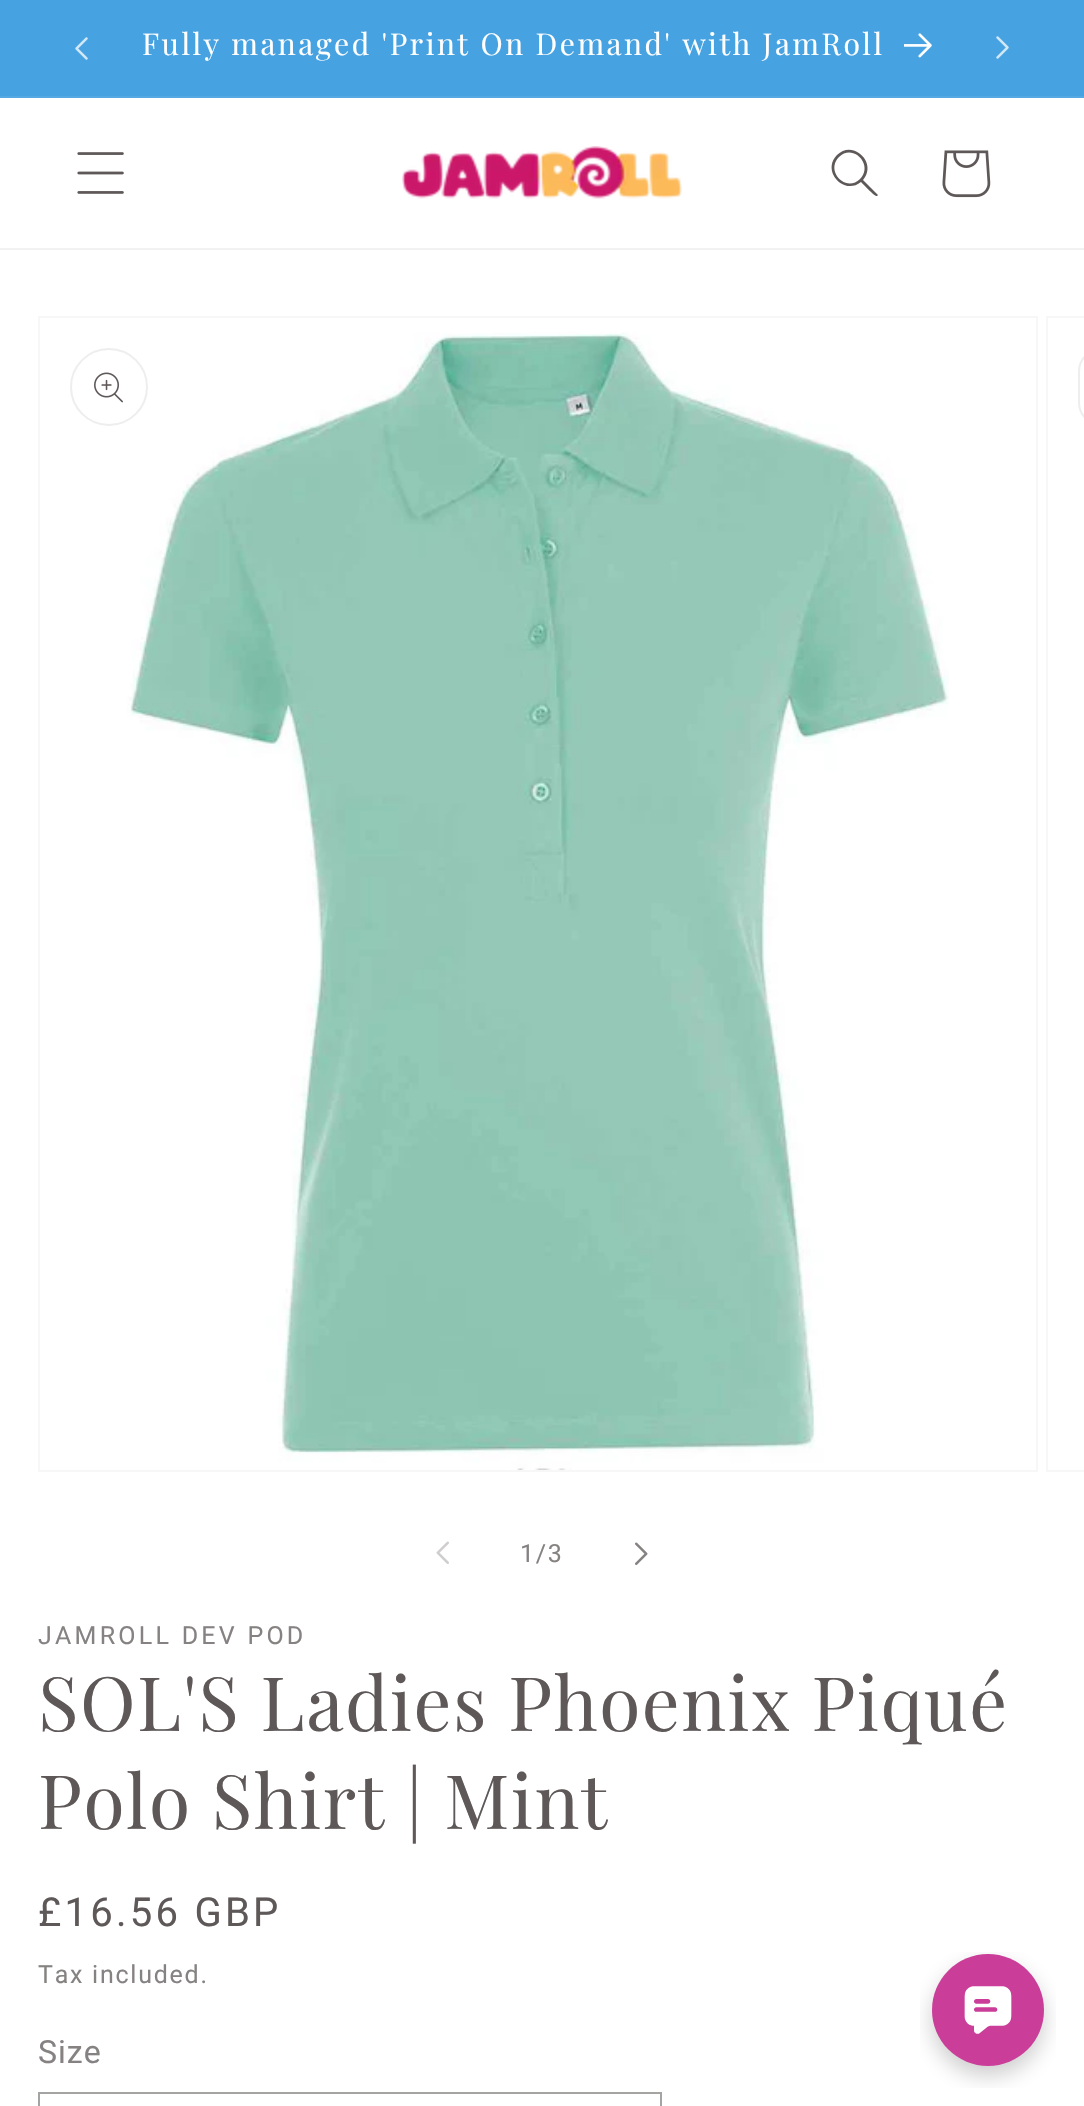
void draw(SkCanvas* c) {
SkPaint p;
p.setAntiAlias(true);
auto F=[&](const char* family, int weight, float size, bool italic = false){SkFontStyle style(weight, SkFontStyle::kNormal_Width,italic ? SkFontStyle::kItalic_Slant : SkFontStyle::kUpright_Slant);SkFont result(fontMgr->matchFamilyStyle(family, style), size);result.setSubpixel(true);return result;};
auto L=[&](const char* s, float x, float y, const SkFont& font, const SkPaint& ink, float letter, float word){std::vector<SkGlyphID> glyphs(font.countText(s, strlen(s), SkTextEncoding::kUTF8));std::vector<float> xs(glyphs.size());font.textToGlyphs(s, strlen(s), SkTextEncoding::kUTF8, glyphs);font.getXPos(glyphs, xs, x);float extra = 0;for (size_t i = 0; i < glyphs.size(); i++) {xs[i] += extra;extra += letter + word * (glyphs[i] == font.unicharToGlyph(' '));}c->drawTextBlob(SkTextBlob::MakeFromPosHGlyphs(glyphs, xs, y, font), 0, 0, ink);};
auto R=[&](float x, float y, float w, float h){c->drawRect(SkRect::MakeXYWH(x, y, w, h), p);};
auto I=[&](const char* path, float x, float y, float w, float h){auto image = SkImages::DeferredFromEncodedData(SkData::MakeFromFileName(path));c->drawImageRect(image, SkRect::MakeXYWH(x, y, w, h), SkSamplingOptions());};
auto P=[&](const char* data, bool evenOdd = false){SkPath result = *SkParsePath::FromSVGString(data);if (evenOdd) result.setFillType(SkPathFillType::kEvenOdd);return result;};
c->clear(0xffffffff);
p.setColor(0xff46a2e1);
R(0,0,1084,96);
p.setColor(0xff55a9e3);
R(0,96,1084,2);
I("1.png",75,37,13,23);
auto f1 = F("Playfair Display",400,30);
p.setColor(0xffffffff);
L("Fully managed 'Print On Demand' with JamRoll",142,55,f1,p,2.5,0);
I("2.png",904,33,28,25);
I("3.png",996,36,13,23);
p.setColor(0xfff2f2f2);
R(0,248,1084,2);
I("4.png",77,152,47,42);
I("5.png",402,146,280,53);
p.setColor(0xff5e5858);
c->drawPath(P("M860 179c-14 14-35-8-21-22c14-14 35 8 21 22zm1 3c-17 14-40-11-24-27c16-16 41 8 26 25l15 15l-1 1c-2 1-14-12-16-14z",true),p);
I("6.png",942,150,49,48);
p.setStroke(true);
p.setStrokeWidth(2);
p.setColor(0xfff7f7f7);
c->drawRect(SkRect::MakeXYWH(39,317,998,1154),p);
I("8.png",127,332,822,1138);
p.setColor(0xffefeeee);
c->drawCircle(109,387,38,p);
I("7.png",94,372,29,31);
p.setColor(0xfff7f7f7);
c->drawRect(SkRect::MakeXYWH(1047,317,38,1154),p);
p.setColor(0xffefeeee);
c->drawRoundRect(SkRect::MakeXYWH(1079,349,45,76),38,38,p);
I("9.png",436,1541,13,23);
auto f2 = F("Roboto",400,25);
p.setStroke(false);
p.setColor(0xff868282);
L("1/3",520,1562,f2,p,1.75,0);
I("10.png",635,1542,13,23);
L("JAMROLL DEV POD",38,1644,f2,p,3.25,0);
auto f3 = F("Playfair Display",400,75);
p.setColor(0xff5e5858);
L("SOL'S Ladies Phoenix Piqué",38,1731,f3,p,1.5,0);
L("Polo Shirt | Mint",38,1829,f3,p,1.5,0);
auto f4 = F("Roboto",400,40);
L("£16.56 GBP",38,1926,f4,p,3.25,0);
p.setColor(0xff868282);
L("Tax included.",38,1983,f2,p,1.75,0);
auto f5 = F("Roboto",400,32);
L("Size",38,2063,f5,p,1,0);
p.setStroke(true);
p.setColor(0xffa6a3a3);
c->drawRect(SkRect::MakeXYWH(39,2093,622,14),p);
I("11.png",920,1952,136,136);
}
